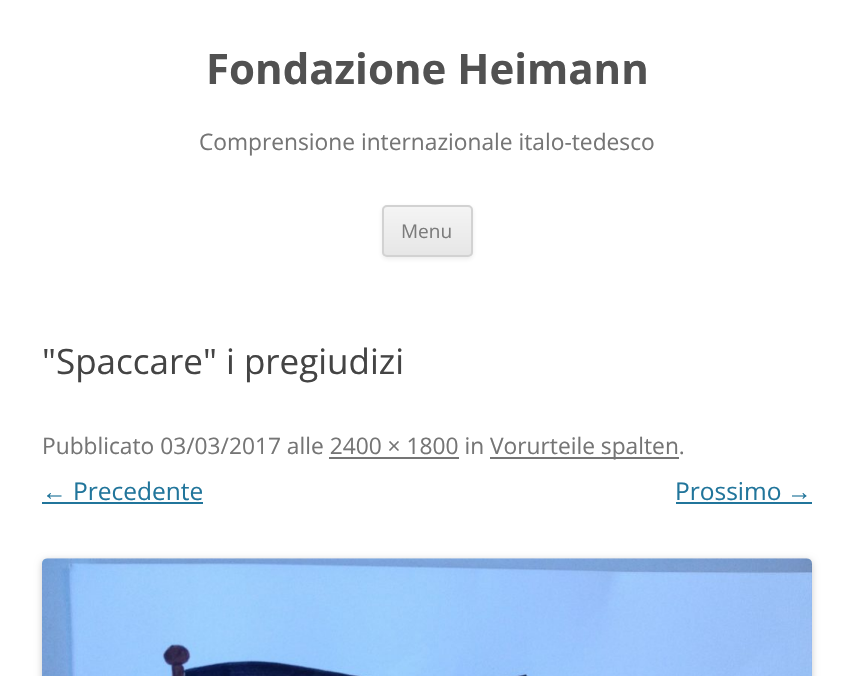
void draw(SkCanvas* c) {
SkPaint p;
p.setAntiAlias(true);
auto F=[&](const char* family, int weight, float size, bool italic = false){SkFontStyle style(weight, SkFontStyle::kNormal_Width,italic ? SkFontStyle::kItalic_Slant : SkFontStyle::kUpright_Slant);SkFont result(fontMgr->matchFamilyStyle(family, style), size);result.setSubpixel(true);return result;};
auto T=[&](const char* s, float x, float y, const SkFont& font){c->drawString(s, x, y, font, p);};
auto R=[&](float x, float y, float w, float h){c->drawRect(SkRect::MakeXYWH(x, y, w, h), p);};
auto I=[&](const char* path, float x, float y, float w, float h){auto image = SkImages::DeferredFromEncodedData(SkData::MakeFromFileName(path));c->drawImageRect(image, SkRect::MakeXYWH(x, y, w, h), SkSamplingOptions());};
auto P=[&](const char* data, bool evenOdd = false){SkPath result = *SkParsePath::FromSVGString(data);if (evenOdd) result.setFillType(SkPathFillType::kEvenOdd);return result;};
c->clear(0xffffffff);
auto f1 = F("Open Sans",700,42);
p.setColor(0xff515151);
T("Fondazione Heimann",206,84,f1);
auto f2 = F("Open Sans",400,22.75);
p.setColor(0xff757575);
T("Comprensione internazionale italo-tedesco",199,150,f2);
p.setColor(0x1a404040);
p.setMaskFilter(SkMaskFilter::MakeBlur(kNormal_SkBlurStyle, 2));
c->drawRoundRect(SkRect::MakeXYWH(382,207,91,52),5,5,p);
p.setMaskFilter(nullptr);
c->save();
c->clipPath(P("M387 205h81c3 0 5 2 5 5v42c0 3-2 5-5 5h-81c-3 0-5-2-5-5v-42c0-3 2-5 5-5z"),true);
{
const SkColor colors[] = {0xfff4f4f4,0xffe6e6e6};
const float stops[] = {0,1};
const SkPoint ends[] = {{427,207}, {427,256}};
p.setShader(SkGradientShader::MakeLinear(ends, colors, stops, 2, SkTileMode::kClamp));
p.setAlpha(255);
}
R(382,207,91,49);
c->restore();
p.setStroke(true);
p.setStrokeWidth(2);
p.setShader(nullptr);
p.setColor(0xffd2d2d2);
c->drawRoundRect(SkRect::MakeXYWH(383,206,89,50),4,4,p);
auto f3 = F("Open Sans",400,19);
p.setStroke(false);
p.setColor(0xff7c7c7c);
T("Menu",401,238,f3);
auto f4 = F("Open Sans",400,35);
p.setColor(0xff444444);
T("\"Spaccare\" i pregiudizi",42,374,f4);
p.setColor(0xff757575);
T("Pubblicato 03/03/2017 alle 2400 × 1800 in",42,454,f2);
R(490,457,189,2);
T("Vorurteile spalten.",490,454,f2);
R(329,457,130,2);
auto f5 = F("Liberation Sans",400,24.5);
p.setColor(0xff21759b);
T("←",42,500,f5);
R(42,502,161,2);
auto f6 = F("Open Sans",400,24.5);
T("Precedente",73,500,f6);
T("Prossimo",675,500,f6);
T("→",787,500,f5);
R(676,502,136,2);
p.setColor(0x33000000);
p.setMaskFilter(SkMaskFilter::MakeBlur(kNormal_SkBlurStyle, 3.5));
c->drawRoundRect(SkRect::MakeXYWH(42,560,770,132),5,5,p);
p.setMaskFilter(nullptr);
I("1.png",42,558,770,118);
}
